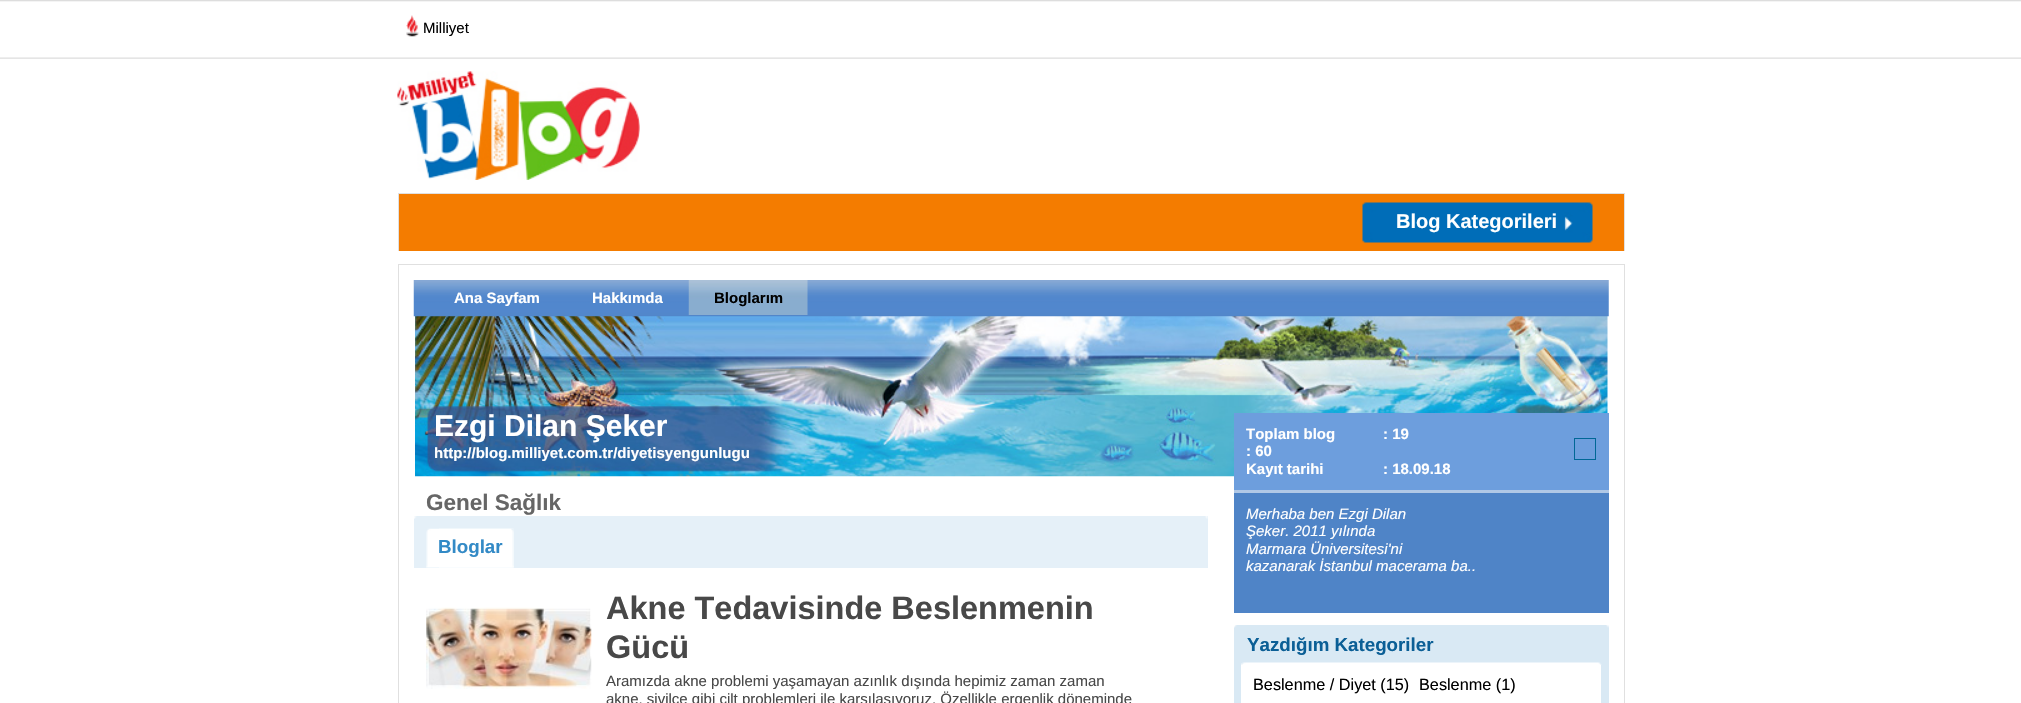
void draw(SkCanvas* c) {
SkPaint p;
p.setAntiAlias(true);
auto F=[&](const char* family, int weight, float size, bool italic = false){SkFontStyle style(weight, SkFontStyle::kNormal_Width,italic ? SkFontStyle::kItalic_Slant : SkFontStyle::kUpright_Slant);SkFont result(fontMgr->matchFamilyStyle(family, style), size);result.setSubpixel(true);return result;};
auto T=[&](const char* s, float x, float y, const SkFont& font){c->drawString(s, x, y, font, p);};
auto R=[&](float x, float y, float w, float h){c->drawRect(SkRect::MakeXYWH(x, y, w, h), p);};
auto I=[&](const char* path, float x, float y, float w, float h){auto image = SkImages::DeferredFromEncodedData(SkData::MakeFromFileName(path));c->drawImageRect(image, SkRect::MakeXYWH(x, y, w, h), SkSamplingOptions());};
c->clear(0xffffffff);
I("1.png",0,0,2021,59);
I("2.png",406,15,13,22);
auto f1 = F("Liberation Sans",400,15);
p.setColor(0xff000000);
T("Milliyet",423,33,f1);
I("3.png",397,71,243,109);
p.setColor(0xfff47c00);
R(399,194,1225,57);
p.setColor(0xffe0e0e0);
R(398,193,1227,1);
R(1624,193,1,58);
R(398,193,1,58);
I("4.png",1362,202,231,41);
auto f2 = F("Liberation Sans",700,20);
p.setColor(0xffffffff);
T("Blog Kategorileri",1396,228,f2);
I("5.png",415,316,1193,161);
p.setStroke(true);
p.setStrokeWidth(1);
p.setColor(0xffe0e0e0);
c->drawRect(SkRect::MakeXYWH(398.5,264.5,1226,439),p);
I("6.png",413,280,1196,37);
auto f3 = F("Liberation Sans",700,15);
p.setStroke(false);
p.setColor(0xffffffff);
T("Ana Sayfam",454,303,f3);
T("Hakkımda",592,303,f3);
I("7.png",688,280,120,35);
p.setColor(0xff000000);
T("Bloglarım",714,303,f3);
auto f4 = F("Liberation Sans",700,30);
p.setColor(0xffffffff);
T("Ezgi Dilan Şeker",434,436,f4);
T("http://blog.milliyet.com.tr/diyetisyengunlugu",434,458,f3);
auto f5 = F("Liberation Sans",700,22.5);
p.setColor(0xff666666);
T("Genel Sağlık",426,510,f5);
p.setColor(0xffe5f0f8);
R(414,516,794,52);
I("8.png",414,516,794,3);
I("9.png",426,528,88,40);
I("10.png",439,528,75,40);
auto f6 = F("Liberation Sans",700,18.75);
p.setColor(0xff338ac6);
T("Bloglar",438,553,f6);
I("11.png",426,607,166,82);
auto f7 = F("Liberation Sans",700,32.5);
p.setColor(0xff484848);
T("Akne Tedavisinde Beslenmenin",606,619,f7);
T("Gücü",606,658,f7);
T("Aramızda akne problemi yaşamayan azınlık dışında hepimiz zaman zaman",606,686,f1);
T("akne, sivilce gibi cilt problemleri ile karşılaşıyoruz. Özellikle ergenlik döneminde",606,704,f1);
p.setColor(0xff4f84c7);
R(1234,493,375,120);
p.setColor(0xff6d9edd);
R(1234,413,375,77);
p.setColor(0xffb0c8e6);
R(1234,490,375,3);
p.setColor(0xffffffff);
T("Toplam blog",1246,439,f3);
T(": 19",1383,439,f3);
T(": 60",1246,456,f3);
T("Kayıt tarihi",1246,474,f3);
T(": 18.09.18",1383,474,f3);
p.setStroke(true);
p.setColor(0xff006796);
c->drawRect(SkRect::MakeXYWH(1574.5,438.5,21,21),p);
auto f8 = F("Liberation Sans",400,15,true);
p.setStroke(false);
p.setColor(0xffffffff);
T("Merhaba ben Ezgi Dilan",1246,519,f8);
T("Şeker. 2011 yılında",1246,536,f8);
T("Marmara Üniversitesi'ni",1246,554,f8);
T("kazanarak İstanbul macerama ba..",1246,571,f8);
p.setColor(0xffd9e9f4);
R(1234,625,375,78);
I("12.png",1234,625,375,3);
p.setColor(0xff0b5f96);
T("Yazdığım Kategoriler",1247,651,f6);
p.setColor(0xffffffff);
R(1241,663,360,40);
I("13.png",1241,662,361,3);
auto f9 = F("Liberation Sans",400,16.25);
p.setColor(0xff000000);
T("Beslenme / Diyet (15)",1253,690,f9);
T("Beslenme (1)",1419,690,f9);
}
